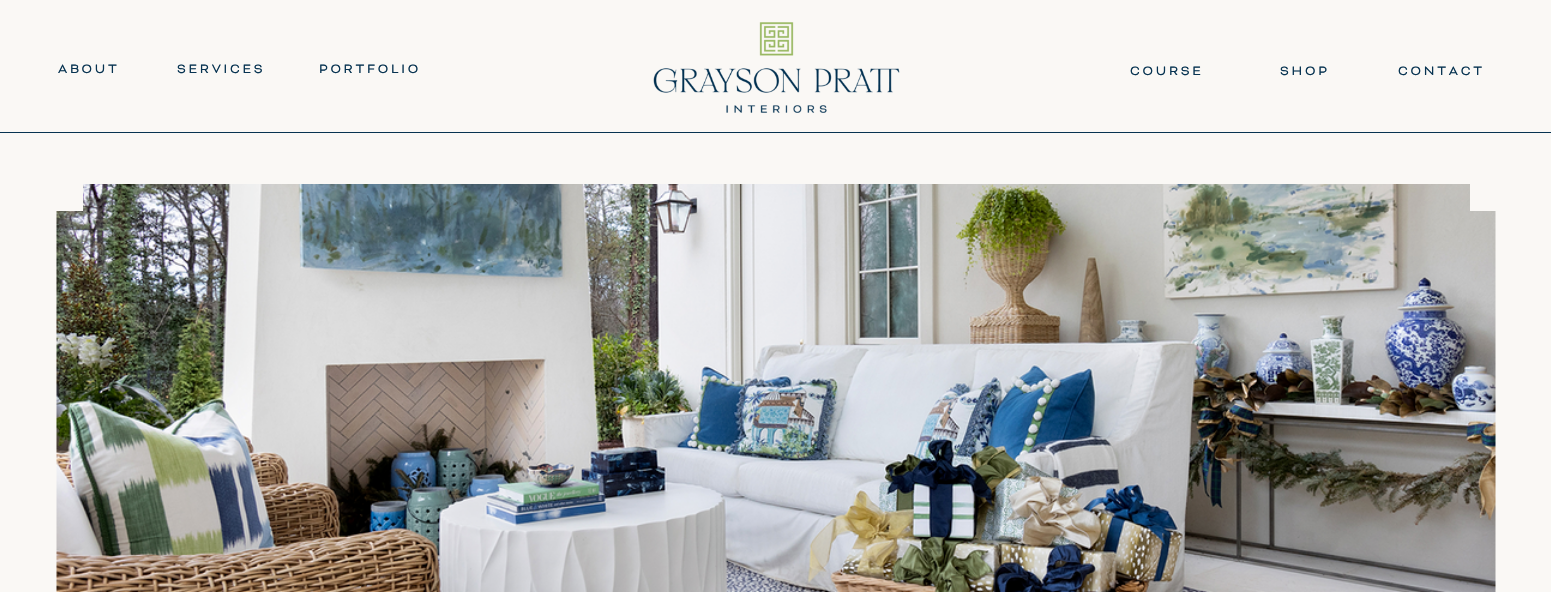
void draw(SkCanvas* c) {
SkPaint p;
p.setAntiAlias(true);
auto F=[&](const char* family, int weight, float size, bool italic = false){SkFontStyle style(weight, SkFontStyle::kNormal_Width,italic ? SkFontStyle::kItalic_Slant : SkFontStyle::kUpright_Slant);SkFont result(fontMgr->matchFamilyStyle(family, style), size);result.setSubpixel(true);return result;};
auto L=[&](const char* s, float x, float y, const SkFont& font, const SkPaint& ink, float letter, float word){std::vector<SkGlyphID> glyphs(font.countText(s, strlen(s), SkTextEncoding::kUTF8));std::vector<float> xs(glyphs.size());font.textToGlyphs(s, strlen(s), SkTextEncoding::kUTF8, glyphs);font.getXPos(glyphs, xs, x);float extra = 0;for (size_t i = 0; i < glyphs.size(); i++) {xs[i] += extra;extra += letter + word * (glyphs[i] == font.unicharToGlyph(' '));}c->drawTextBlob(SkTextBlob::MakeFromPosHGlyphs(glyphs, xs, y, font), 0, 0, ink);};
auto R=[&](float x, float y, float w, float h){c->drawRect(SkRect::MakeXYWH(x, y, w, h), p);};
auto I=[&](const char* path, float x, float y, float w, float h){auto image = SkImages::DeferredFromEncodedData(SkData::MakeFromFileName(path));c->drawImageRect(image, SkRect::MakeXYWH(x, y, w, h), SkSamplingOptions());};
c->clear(0xfffaf8f5);
auto f1 = F("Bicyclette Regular",400,14);
p.setColor(0xff073351);
L("ABOUT",58,73,f1,p,2.75,0);
L("SERVICES",177,73,f1,p,2.75,0);
L("PORTFOLIO",319,73,f1,p,2.75,0);
I("1.png",653,22,247,91);
L("COURSE",1130,75,f1,p,2.75,0);
L("SHOP",1280,75,f1,p,2.75,0);
L("CONTACT",1398,75,f1,p,2.75,0);
R(0,132,1551,1);
I("2.png",56,184,1440,408);
p.setColor(0xfffaf8f5);
R(56,184,27,27);
R(1470,184,26,27);
}
